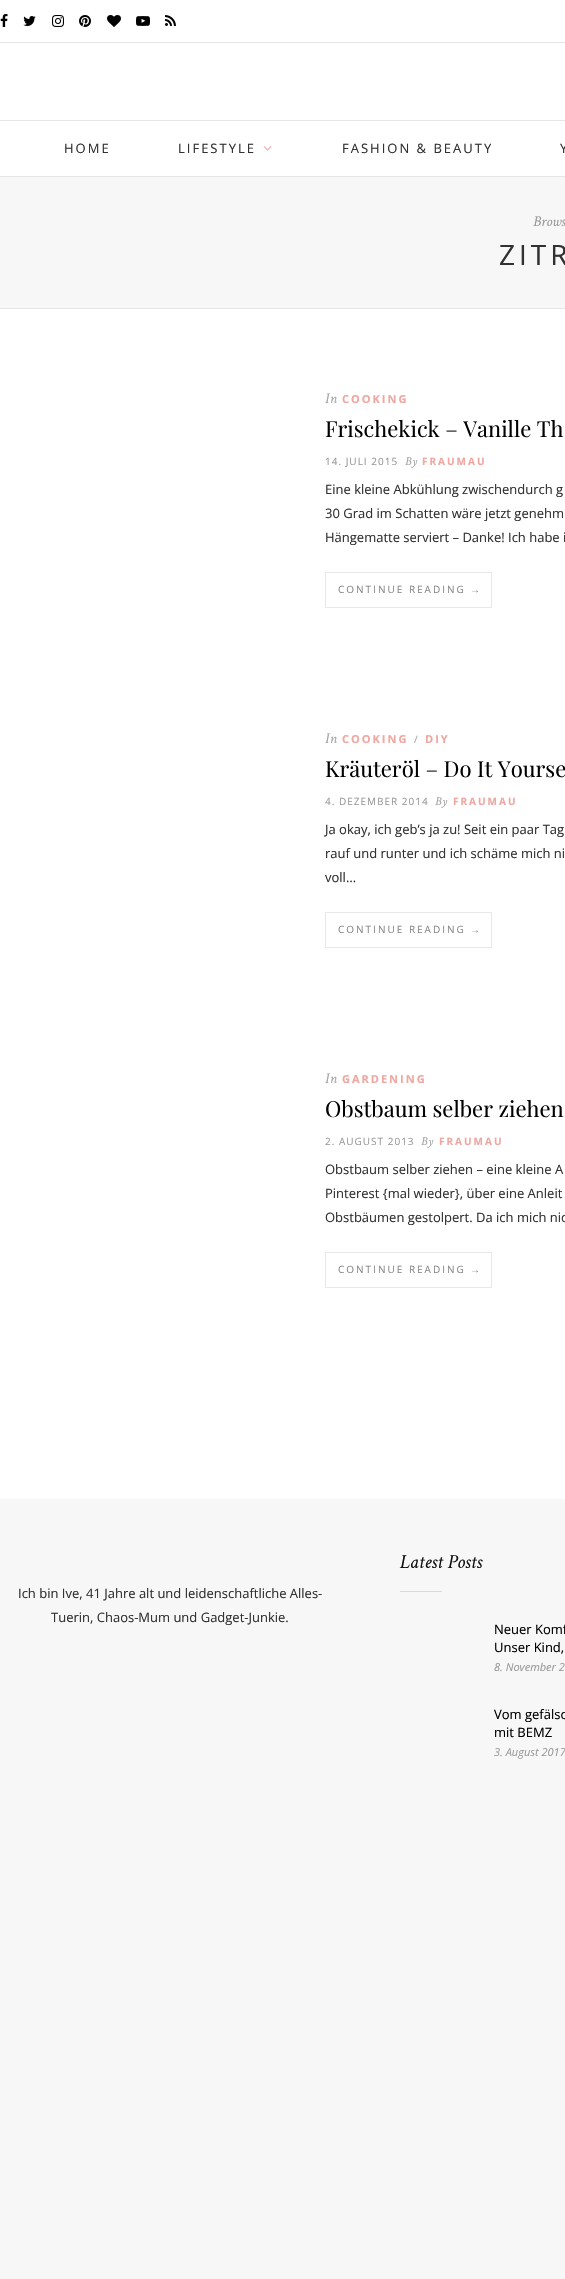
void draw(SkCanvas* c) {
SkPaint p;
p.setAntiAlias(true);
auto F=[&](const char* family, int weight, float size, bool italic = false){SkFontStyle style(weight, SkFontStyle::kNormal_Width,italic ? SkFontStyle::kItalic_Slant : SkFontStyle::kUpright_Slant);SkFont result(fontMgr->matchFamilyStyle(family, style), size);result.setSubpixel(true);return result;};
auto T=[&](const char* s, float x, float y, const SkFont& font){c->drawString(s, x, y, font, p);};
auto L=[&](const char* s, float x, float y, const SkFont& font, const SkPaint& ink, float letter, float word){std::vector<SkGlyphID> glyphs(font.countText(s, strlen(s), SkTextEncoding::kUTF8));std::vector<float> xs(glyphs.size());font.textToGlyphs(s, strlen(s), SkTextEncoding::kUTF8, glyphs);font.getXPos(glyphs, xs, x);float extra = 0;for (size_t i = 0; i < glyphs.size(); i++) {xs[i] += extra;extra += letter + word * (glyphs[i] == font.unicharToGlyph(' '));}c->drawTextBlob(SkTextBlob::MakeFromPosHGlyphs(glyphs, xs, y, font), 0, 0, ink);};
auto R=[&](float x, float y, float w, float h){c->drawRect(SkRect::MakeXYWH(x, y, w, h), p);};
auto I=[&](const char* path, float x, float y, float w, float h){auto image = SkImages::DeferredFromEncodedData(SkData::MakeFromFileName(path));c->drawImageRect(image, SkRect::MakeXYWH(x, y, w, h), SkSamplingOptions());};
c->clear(0xffffffff);
p.setColor(0xffe5e5e5);
R(0,42,565,1);
I("1.png",0,14,8,13);
I("2.png",23,16,13,10);
I("3.png",52,15,12,12);
I("4.png",79,15,12,12);
I("5.png",107,15,14,12);
I("6.png",136,16,14,10);
I("7.png",165,15,11,11);
R(0,120,565,1);
R(0,176,565,1);
auto f1 = F("Open Sans",400,13);
p.setColor(0xff313131);
L("HOME",64,153,f1,p,2,0);
L("LIFESTYLE",178,153,f1,p,2,0);
I("8.png",263,146,9,5);
L("FASHION & BEAUTY",342,153,f1,p,2,0);
L("Y",560,153,f1,p,2,0);
p.setColor(0xfff7f7f7);
R(0,177,565,131);
p.setColor(0xffe5e5e5);
R(0,308,565,1);
auto f2 = F("Crimson Text",400,15,true);
p.setColor(0xff999999);
T("Brows",533,226,f2);
auto f3 = F("Open Sans",400,28);
p.setColor(0xff313131);
L("ZITR",499,265,f3,p,4,0);
p.setColor(0xffa5a5a5);
T("In",325,403,f2);
auto f4 = F("Open Sans",700,11);
p.setColor(0xffefa7a1);
L("COOKING",342,403,f4,p,2,0);
auto f5 = F("Playfair Display",400,22);
p.setColor(0xff000000);
T("Frischekick – Vanille Th",325,437,f5);
auto f6 = F("Open Sans",400,10);
p.setColor(0xff999999);
L("14. JULI 2015",325,465,f6,p,1,0);
auto f7 = F("Crimson Text",400,12,true);
p.setColor(0xffa5a5a5);
T("By",405,465,f7);
auto f8 = F("Open Sans",700,10);
p.setColor(0xffefa7a1);
L("FRAUMAU",422,465,f8,p,2,0);
p.setColor(0xff313131);
T("Eine kleine Abkühlung zwischendurch g",325,494,f1);
T("30 Grad im Schatten wäre jetzt genehm",325,518,f1);
T("Hängematte serviert – Danke! Ich habe i",325,542,f1);
p.setStroke(true);
p.setStrokeWidth(1);
p.setColor(0xffe8e8e8);
c->drawRect(SkRect::MakeXYWH(325.5,572.5,166,35),p);
p.setStroke(false);
p.setColor(0xff888888);
L("CONTINUE READING",338,593,f6,p,2,0);
auto f9 = F("Liberation Sans",400,10);
L("→",470,593,f9,p,2,0);
p.setColor(0xffa5a5a5);
T("In",325,743,f2);
p.setColor(0xffefa7a1);
L("COOKING",342,743,f4,p,2,0);
p.setColor(0xffa5a5a5);
T("/",414,743,f6);
p.setColor(0xffefa7a1);
L("DIY",425,743,f4,p,2,0);
p.setColor(0xff000000);
T("Kräuteröl – Do It Yourse",325,777,f5);
p.setColor(0xff999999);
L("4. DEZEMBER 2014",325,805,f6,p,1,0);
p.setColor(0xffa5a5a5);
T("By",435,805,f7);
p.setColor(0xffefa7a1);
L("FRAUMAU",453,805,f8,p,2,0);
p.setColor(0xff313131);
T("Ja okay, ich geb’s ja zu! Seit ein paar Tag",325,834,f1);
T("rauf und runter und ich schäme mich ni",325,858,f1);
T("voll…",325,882,f1);
p.setStroke(true);
p.setColor(0xffe8e8e8);
c->drawRect(SkRect::MakeXYWH(325.5,912.5,166,35),p);
p.setStroke(false);
p.setColor(0xff888888);
L("CONTINUE READING",338,933,f6,p,2,0);
L("→",470,933,f9,p,2,0);
p.setColor(0xffa5a5a5);
T("In",325,1083,f2);
p.setColor(0xffefa7a1);
L("GARDENING",342,1083,f4,p,2,0);
p.setColor(0xff000000);
T("Obstbaum selber ziehen",325,1117,f5);
p.setColor(0xff999999);
L("2. AUGUST 2013",325,1145,f6,p,1,0);
p.setColor(0xffa5a5a5);
T("By",421,1145,f7);
p.setColor(0xffefa7a1);
L("FRAUMAU",439,1145,f8,p,2,0);
p.setColor(0xff313131);
T("Obstbaum selber ziehen – eine kleine A",325,1174,f1);
T("Pinterest {mal wieder}, über eine Anleit",325,1198,f1);
T("Obstbäumen gestolpert. Da ich mich nic",325,1222,f1);
p.setStroke(true);
p.setColor(0xffe8e8e8);
c->drawRect(SkRect::MakeXYWH(325.5,1252.5,166,35),p);
p.setStroke(false);
p.setColor(0xff888888);
L("CONTINUE READING",338,1273,f6,p,2,0);
L("→",470,1273,f9,p,2,0);
p.setColor(0xfff7f7f7);
R(0,1499,565,780);
p.setColor(0xff313131);
T("Ich bin Ive, 41 Jahre alt und leidenschaftliche Alles-",18,1598,f1);
T("Tuerin, Chaos-Mum und Gadget-Junkie.",51,1622,f1);
auto f10 = F("Crimson Text",400,20,true);
p.setColor(0xff111111);
T("Latest Posts",400,1568,f10);
p.setColor(0xffd9d9d9);
R(400,1591,42,1);
p.setColor(0xff000000);
T("Neuer Komf",494,1634,f1);
T("Unser Kind,",494,1652,f1);
auto f11 = F("Open Sans",400,11,true);
p.setColor(0xff999999);
T("8. November 2",494,1671,f11);
p.setColor(0xff000000);
T("Vom gefälsc",494,1719,f1);
T("mit BEMZ",494,1737,f1);
p.setColor(0xff999999);
T("3. August 2017",494,1756,f11);
}
